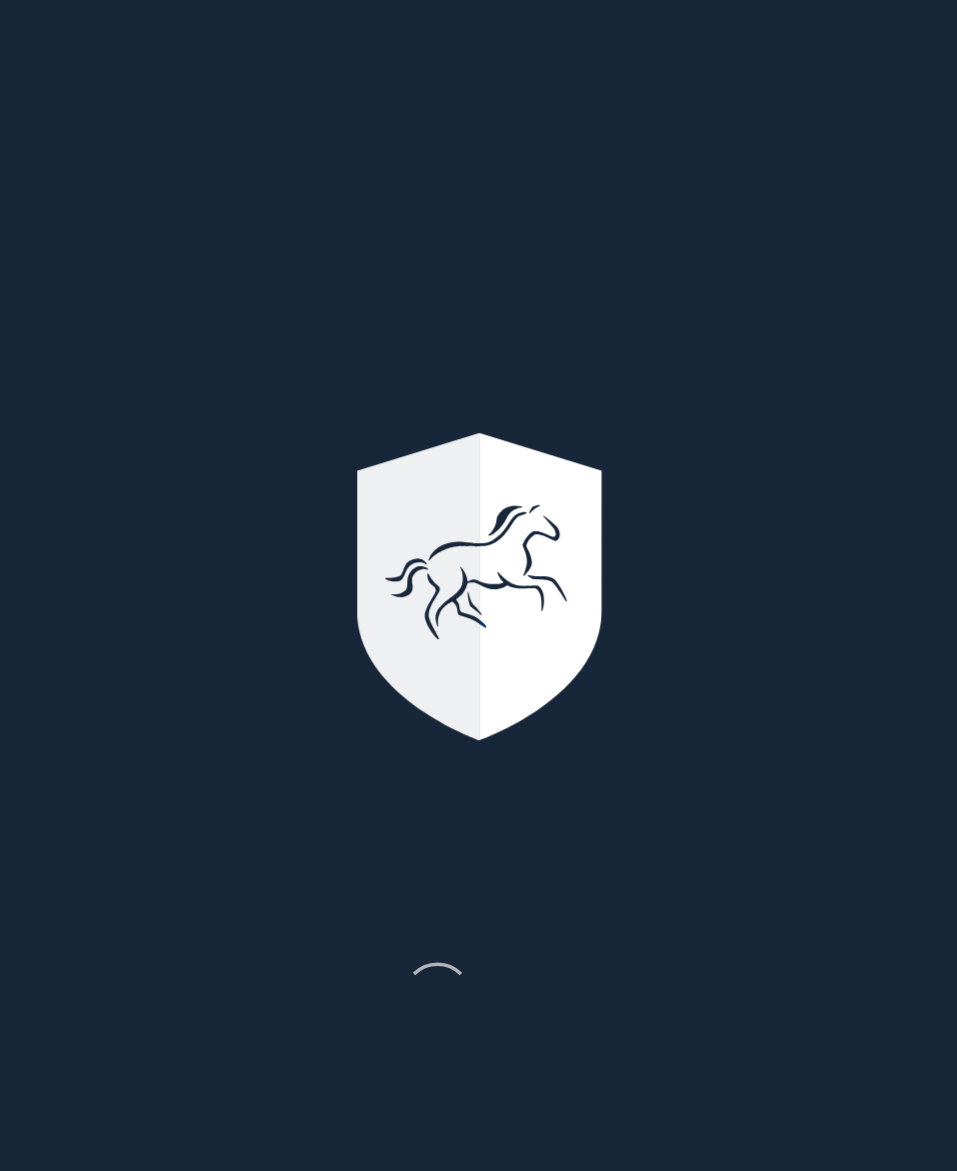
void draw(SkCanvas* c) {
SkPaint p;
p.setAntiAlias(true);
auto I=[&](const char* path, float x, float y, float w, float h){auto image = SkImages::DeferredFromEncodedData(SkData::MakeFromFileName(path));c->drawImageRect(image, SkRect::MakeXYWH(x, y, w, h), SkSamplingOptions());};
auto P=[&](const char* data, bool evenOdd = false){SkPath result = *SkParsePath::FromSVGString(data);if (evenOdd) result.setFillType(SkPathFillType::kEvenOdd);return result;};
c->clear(0xff182639);
I("1.png",357,432,246,309);
p.setStroke(true);
p.setStrokeWidth(3.5);
p.setColor(0xffb2b4b7);
c->drawPath(P("M414 974c13-13 34-13 47 0m-47 0c13-13 34-13 47 0"),p);
}
